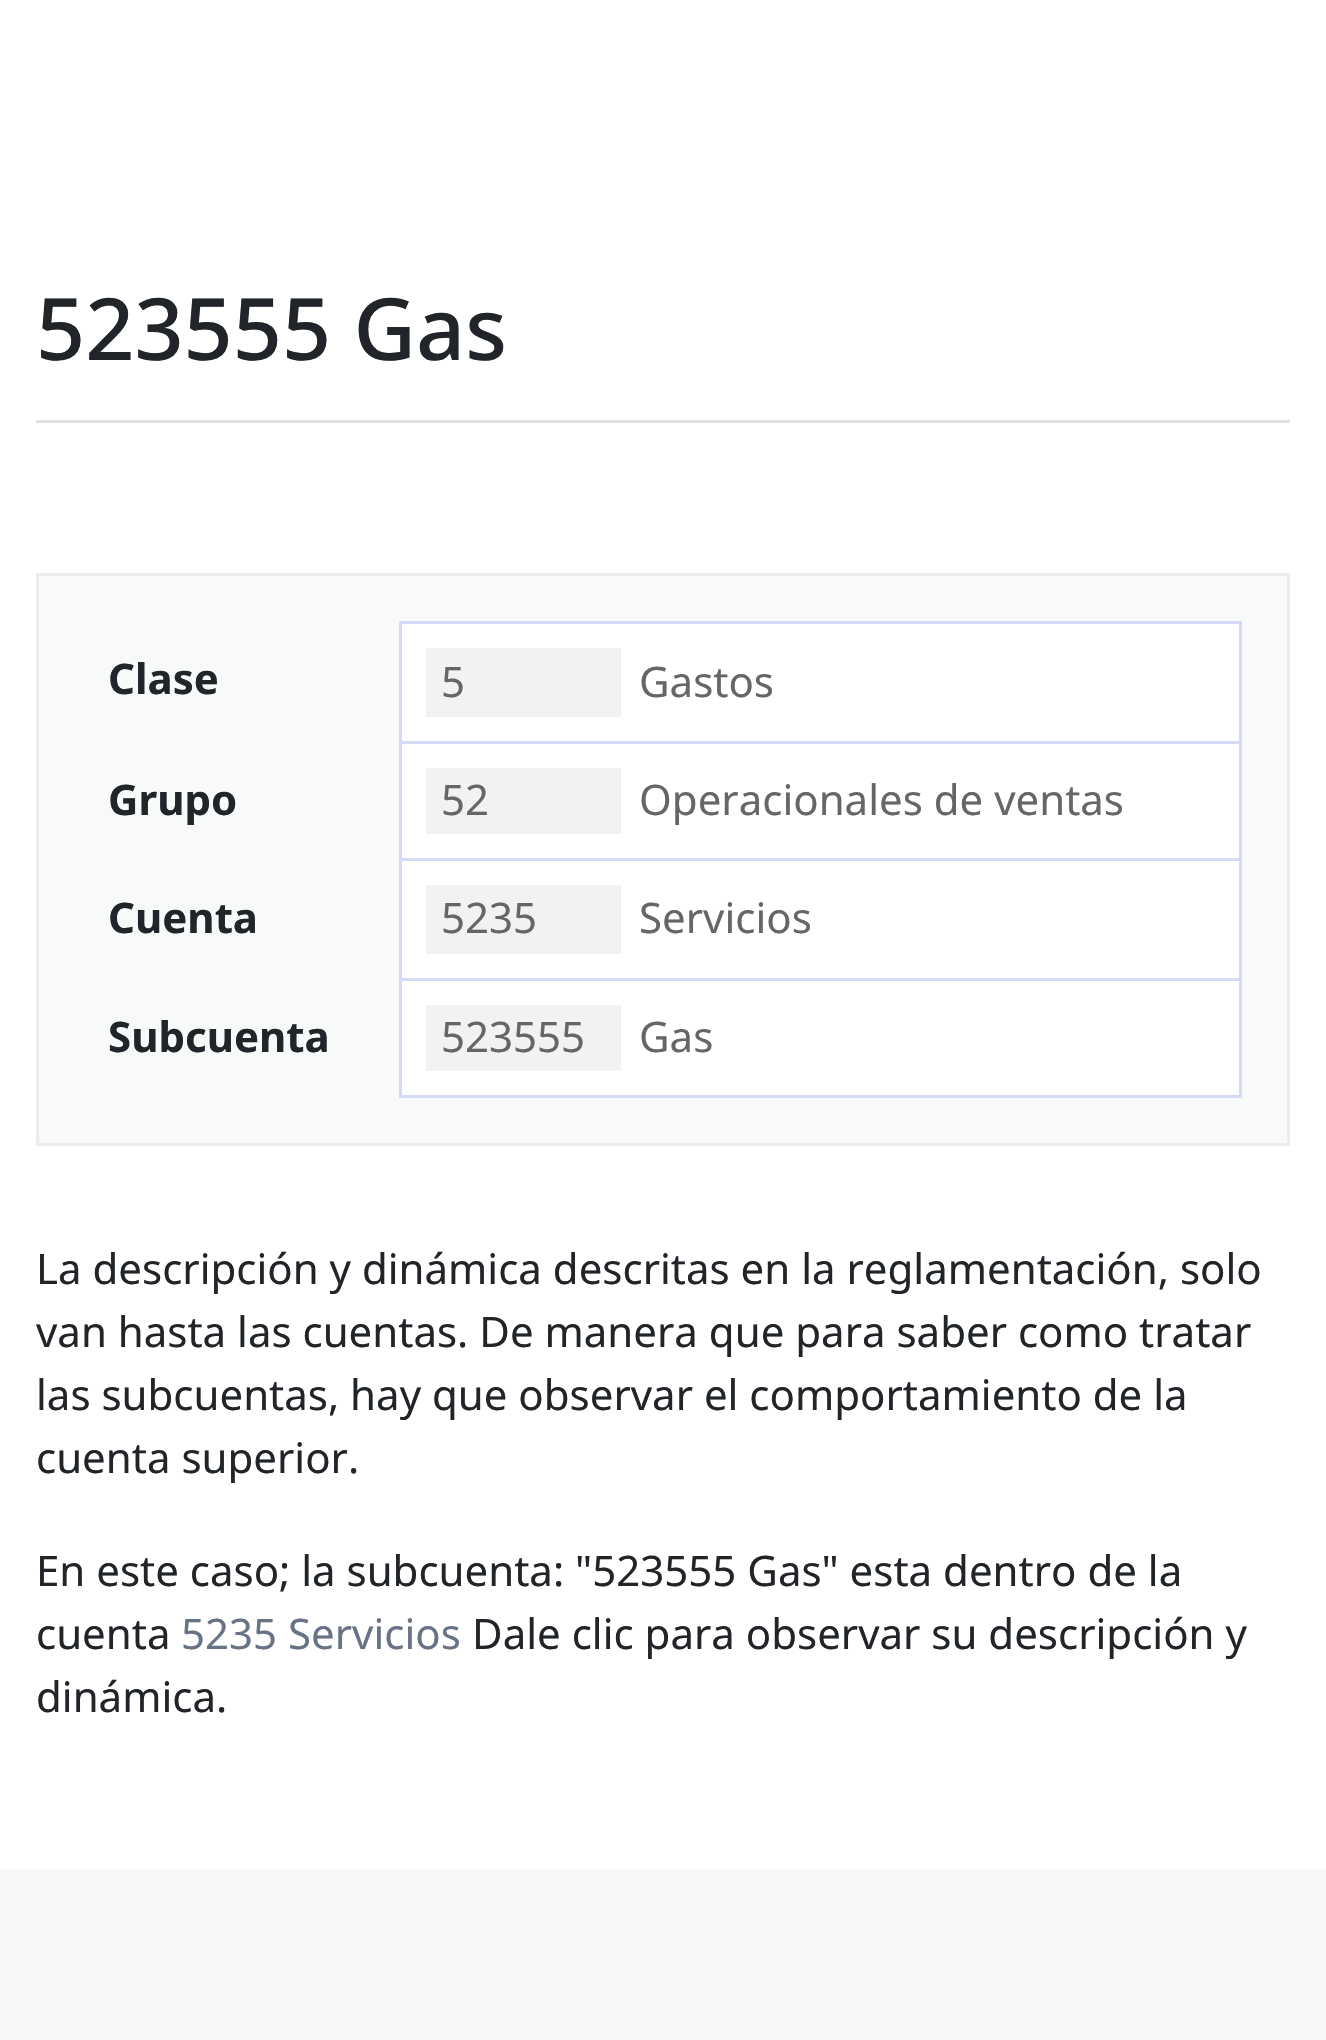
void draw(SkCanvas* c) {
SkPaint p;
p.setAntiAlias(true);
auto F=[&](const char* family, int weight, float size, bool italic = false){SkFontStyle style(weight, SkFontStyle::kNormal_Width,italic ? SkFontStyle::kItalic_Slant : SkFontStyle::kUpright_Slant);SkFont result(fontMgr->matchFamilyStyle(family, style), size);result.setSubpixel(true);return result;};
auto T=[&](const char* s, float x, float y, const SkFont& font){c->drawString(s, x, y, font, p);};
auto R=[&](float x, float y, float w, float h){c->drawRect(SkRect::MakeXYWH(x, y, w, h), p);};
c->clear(0xffffffff);
p.setColor(0xffe1e1e1);
R(36,420,1254,3);
auto f1 = F("Noto Sans",500,86);
p.setColor(0xff212529);
T("523555 Gas",36,360,f1);
p.setColor(0xfff8f9f9);
c->drawRect(SkRect::MakeXYWH(37.5,574.5,1251,570),p);
p.setStroke(true);
p.setStrokeWidth(3);
p.setColor(0xffeaecee);
c->drawRect(SkRect::MakeXYWH(37.5,574.5,1251,570),p);
auto f2 = F("Noto Sans",700,42);
p.setStroke(false);
p.setColor(0xff212529);
T("Clase",108,694,f2);
p.setColor(0xffffffff);
c->drawRect(SkRect::MakeXYWH(400.5,622.5,840,120),p);
p.setStroke(true);
p.setColor(0xffd5daf6);
c->drawRect(SkRect::MakeXYWH(400.5,622.5,840,120),p);
p.setStroke(false);
p.setColor(0xfff1f2f3);
R(426,648,195,69);
auto f3 = F("Noto Sans",400,42);
p.setColor(0xff666666);
T("5",441,697,f3);
T("Gastos",639,697,f3);
p.setColor(0xff212529);
T("Grupo",108,815,f2);
p.setColor(0xffffffff);
R(402,744,837,114);
p.setColor(0xffd5daf6);
R(1239,744,3,354);
R(399,858,843,3);
R(399,744,3,117);
p.setColor(0xfff1f2f3);
R(426,768,195,66);
p.setColor(0xff666666);
T("52",441,815,f3);
T("Operacionales de ventas",639,815,f3);
p.setColor(0xff212529);
T("Cuenta",108,933,f2);
p.setColor(0xffffffff);
R(402,861,837,117);
p.setColor(0xffd5daf6);
R(399,978,843,3);
R(399,861,3,120);
p.setColor(0xfff1f2f3);
R(426,885,195,69);
p.setColor(0xff666666);
T("5235",441,933,f3);
T("Servicios",639,933,f3);
p.setColor(0xff212529);
T("Subcuenta",108,1052,f2);
p.setColor(0xffffffff);
R(402,981,837,114);
p.setColor(0xffd5daf6);
R(399,1095,843,3);
R(399,981,3,117);
p.setColor(0xfff1f2f3);
R(426,1005,195,66);
p.setColor(0xff666666);
T("523555",441,1052,f3);
T("Gas",639,1052,f3);
p.setColor(0xff212529);
T("La descripción y dinámica descritas en la reglamentación, solo",36,1284,f3);
T("van hasta las cuentas. De manera que para saber como tratar",36,1347,f3);
T("las subcuentas, hay que observar el comportamiento de la",36,1410,f3);
T("cuenta superior.",36,1473,f3);
T("En este caso; la subcuenta: \"523555 Gas\" esta dentro de la",36,1586,f3);
T("cuenta",36,1649,f3);
p.setColor(0xff687385);
T("5235 Servicios",181,1649,f3);
p.setColor(0xff212529);
T("Dale clic para observar su descripción y",472,1649,f3);
T("dinámica.",36,1712,f3);
p.setColor(0xfff7f8f9);
R(0,1869,1326,171);
}
